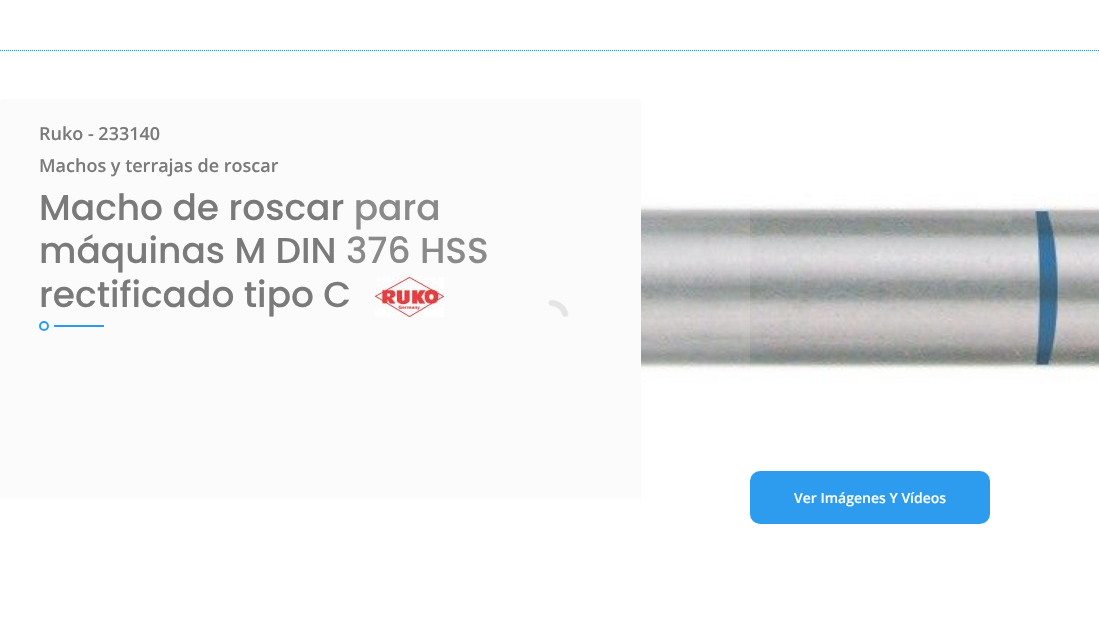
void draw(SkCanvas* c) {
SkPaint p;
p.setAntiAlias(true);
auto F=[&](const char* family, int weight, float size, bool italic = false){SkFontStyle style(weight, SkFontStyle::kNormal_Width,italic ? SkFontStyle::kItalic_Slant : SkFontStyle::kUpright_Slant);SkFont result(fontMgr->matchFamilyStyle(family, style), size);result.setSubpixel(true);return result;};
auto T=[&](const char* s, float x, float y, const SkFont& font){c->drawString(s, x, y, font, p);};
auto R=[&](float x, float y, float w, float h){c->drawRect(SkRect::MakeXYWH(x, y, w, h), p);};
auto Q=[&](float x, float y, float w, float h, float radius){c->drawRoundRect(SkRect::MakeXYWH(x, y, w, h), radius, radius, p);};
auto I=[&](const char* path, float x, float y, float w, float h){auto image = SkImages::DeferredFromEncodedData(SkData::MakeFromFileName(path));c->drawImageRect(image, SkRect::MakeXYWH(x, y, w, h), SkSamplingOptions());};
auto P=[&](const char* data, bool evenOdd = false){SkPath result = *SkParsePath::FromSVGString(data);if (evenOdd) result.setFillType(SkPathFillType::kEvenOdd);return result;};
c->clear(0xffffffff);
p.setStroke(true);
p.setStrokeWidth(1);
p.setColor(0xff2e9cee);
p.setPathEffect(SkDashPathEffect::Make({{1,1}}, 0));
c->drawPath(P("M0 50.5h1099"),p);
p.setPathEffect(nullptr);
p.setStroke(false);
p.setColor(0xfffbfbfb);
Q(0,99,1099,400,4);
auto f1 = F("Open Sans",600,18);
p.setColor(0xff7a7a7a);
T("Ruko - 233140",39,140,f1);
T("Machos y terrajas de roscar",39,172,f1);
auto f2 = F("Poppins",500,36);
T("Macho de roscar para",39,220,f2);
T("máquinas M DIN 376 HSS",39,263,f2);
T("rectificado tipo C",39,307,f2);
I("1.png",375,277,69,40);
p.setStroke(true);
p.setStrokeWidth(2);
p.setColor(0xff2e9cee);
c->drawCircle(44,326,4,p);
p.setStroke(false);
R(54,325,50,2);
I("2.png",641,99,458,400);
Q(750,471,240,53,10);
auto f3 = F("Open Sans",600,14);
p.setColor(0xffffffff);
T("Ver Imágenes Y Vídeos",794,503,f3);
I("3.png",350,200,400,166);
}
